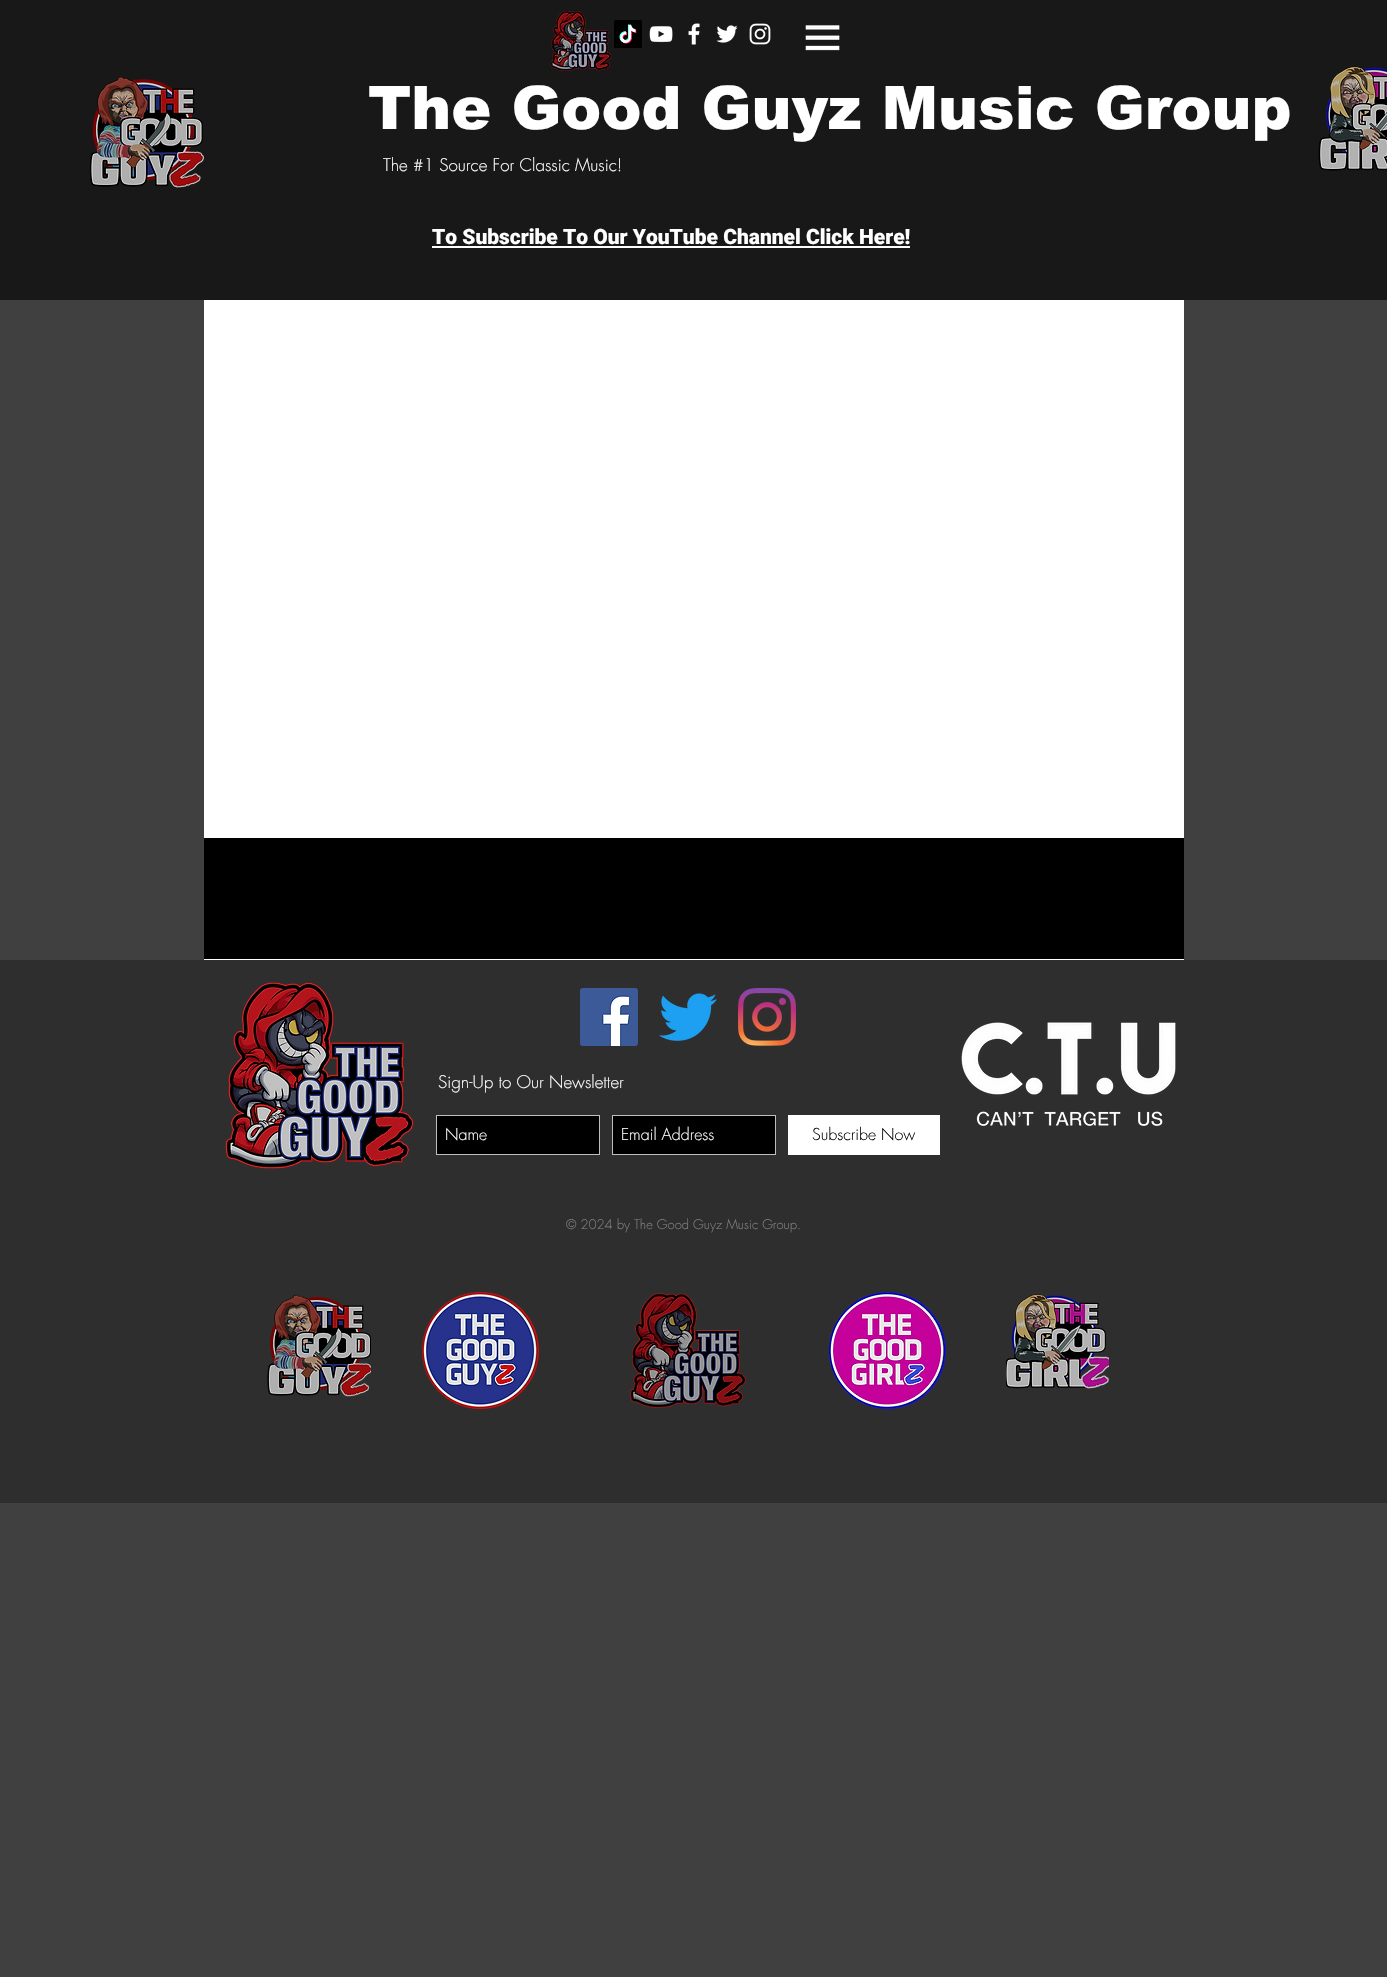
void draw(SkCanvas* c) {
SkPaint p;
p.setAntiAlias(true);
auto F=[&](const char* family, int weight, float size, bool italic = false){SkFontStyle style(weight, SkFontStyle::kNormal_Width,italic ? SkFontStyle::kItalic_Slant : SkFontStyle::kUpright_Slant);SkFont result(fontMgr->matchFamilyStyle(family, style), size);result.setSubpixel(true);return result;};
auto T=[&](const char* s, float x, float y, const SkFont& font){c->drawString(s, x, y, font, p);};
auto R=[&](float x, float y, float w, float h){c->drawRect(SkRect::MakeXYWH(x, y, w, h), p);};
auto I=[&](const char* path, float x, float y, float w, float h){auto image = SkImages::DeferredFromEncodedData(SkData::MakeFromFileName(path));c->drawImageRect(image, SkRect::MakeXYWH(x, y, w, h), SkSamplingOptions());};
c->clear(0xff404040);
p.setColor(0xff181818);
R(0,0,1387,300);
I("1.png",614,20,28,28);
I("2.png",649,26,24,17);
I("3.png",688,23,12,22);
I("4.png",716,25,22,18);
I("5.png",749,23,22,22);
I("6.png",805,25,35,26);
I("7.png",89,77,115,111);
auto f1 = F("arial",900,60);
p.setColor(0xffffffff);
T("The Good Guyz Music Group",368,129,f1);
auto f2 = F("futura",300,17);
T("The #1 Source For Classic Music!",383,171,f2);
I("8.png",550,11,62,60);
I("9.png",1318,66,69,105);
auto f3 = F("Roboto",900,21);
T("To Subscribe To Our YouTube Channel Click Here!",432,244,f3);
R(432,246,478,2);
R(204,300,980,660);
p.setColor(0xff000000);
R(204,838,980,121);
p.setColor(0xff2f2e2e);
R(0,960,1387,543);
I("10.png",225,982,189,187);
I("11.png",580,988,58,58);
I("12.png",659,993,58,48);
I("13.png",738,988,58,58);
I("14.png",961,1022,215,104);
p.setColor(0xffffffff);
T("Sign-Up to Our Newsletter",438,1088,f2);
p.setColor(0xff000000);
c->drawRect(SkRect::MakeXYWH(436.5,1115.5,163,39),p);
p.setStroke(true);
p.setStrokeWidth(1);
p.setColor(0xffbfbfbf);
c->drawRect(SkRect::MakeXYWH(436.5,1115.5,163,39),p);
auto f4 = F("futura",300,16);
p.setStroke(false);
p.setColor(0xffffffff);
T("Name",445,1140,f4);
p.setColor(0xff000000);
c->drawRect(SkRect::MakeXYWH(612.5,1115.5,163,39),p);
p.setStroke(true);
p.setColor(0xffbfbfbf);
c->drawRect(SkRect::MakeXYWH(612.5,1115.5,163,39),p);
p.setStroke(false);
p.setColor(0xffffffff);
T("Email Address",621,1140,f4);
R(788,1115,152,40);
p.setColor(0xff000000);
T("Subscribe Now",812,1140,f4);
auto f5 = F("futura",300,13);
p.setColor(0xff808080);
T("© 2024 by The Good Guyz Music Group.",566,1229,f5);
I("15.png",267,1294,104,103);
I("16.png",422,1292,117,117);
I("17.png",630,1293,116,115);
I("18.png",829,1292,117,117);
I("19.png",1006,1294,103,95);
}
